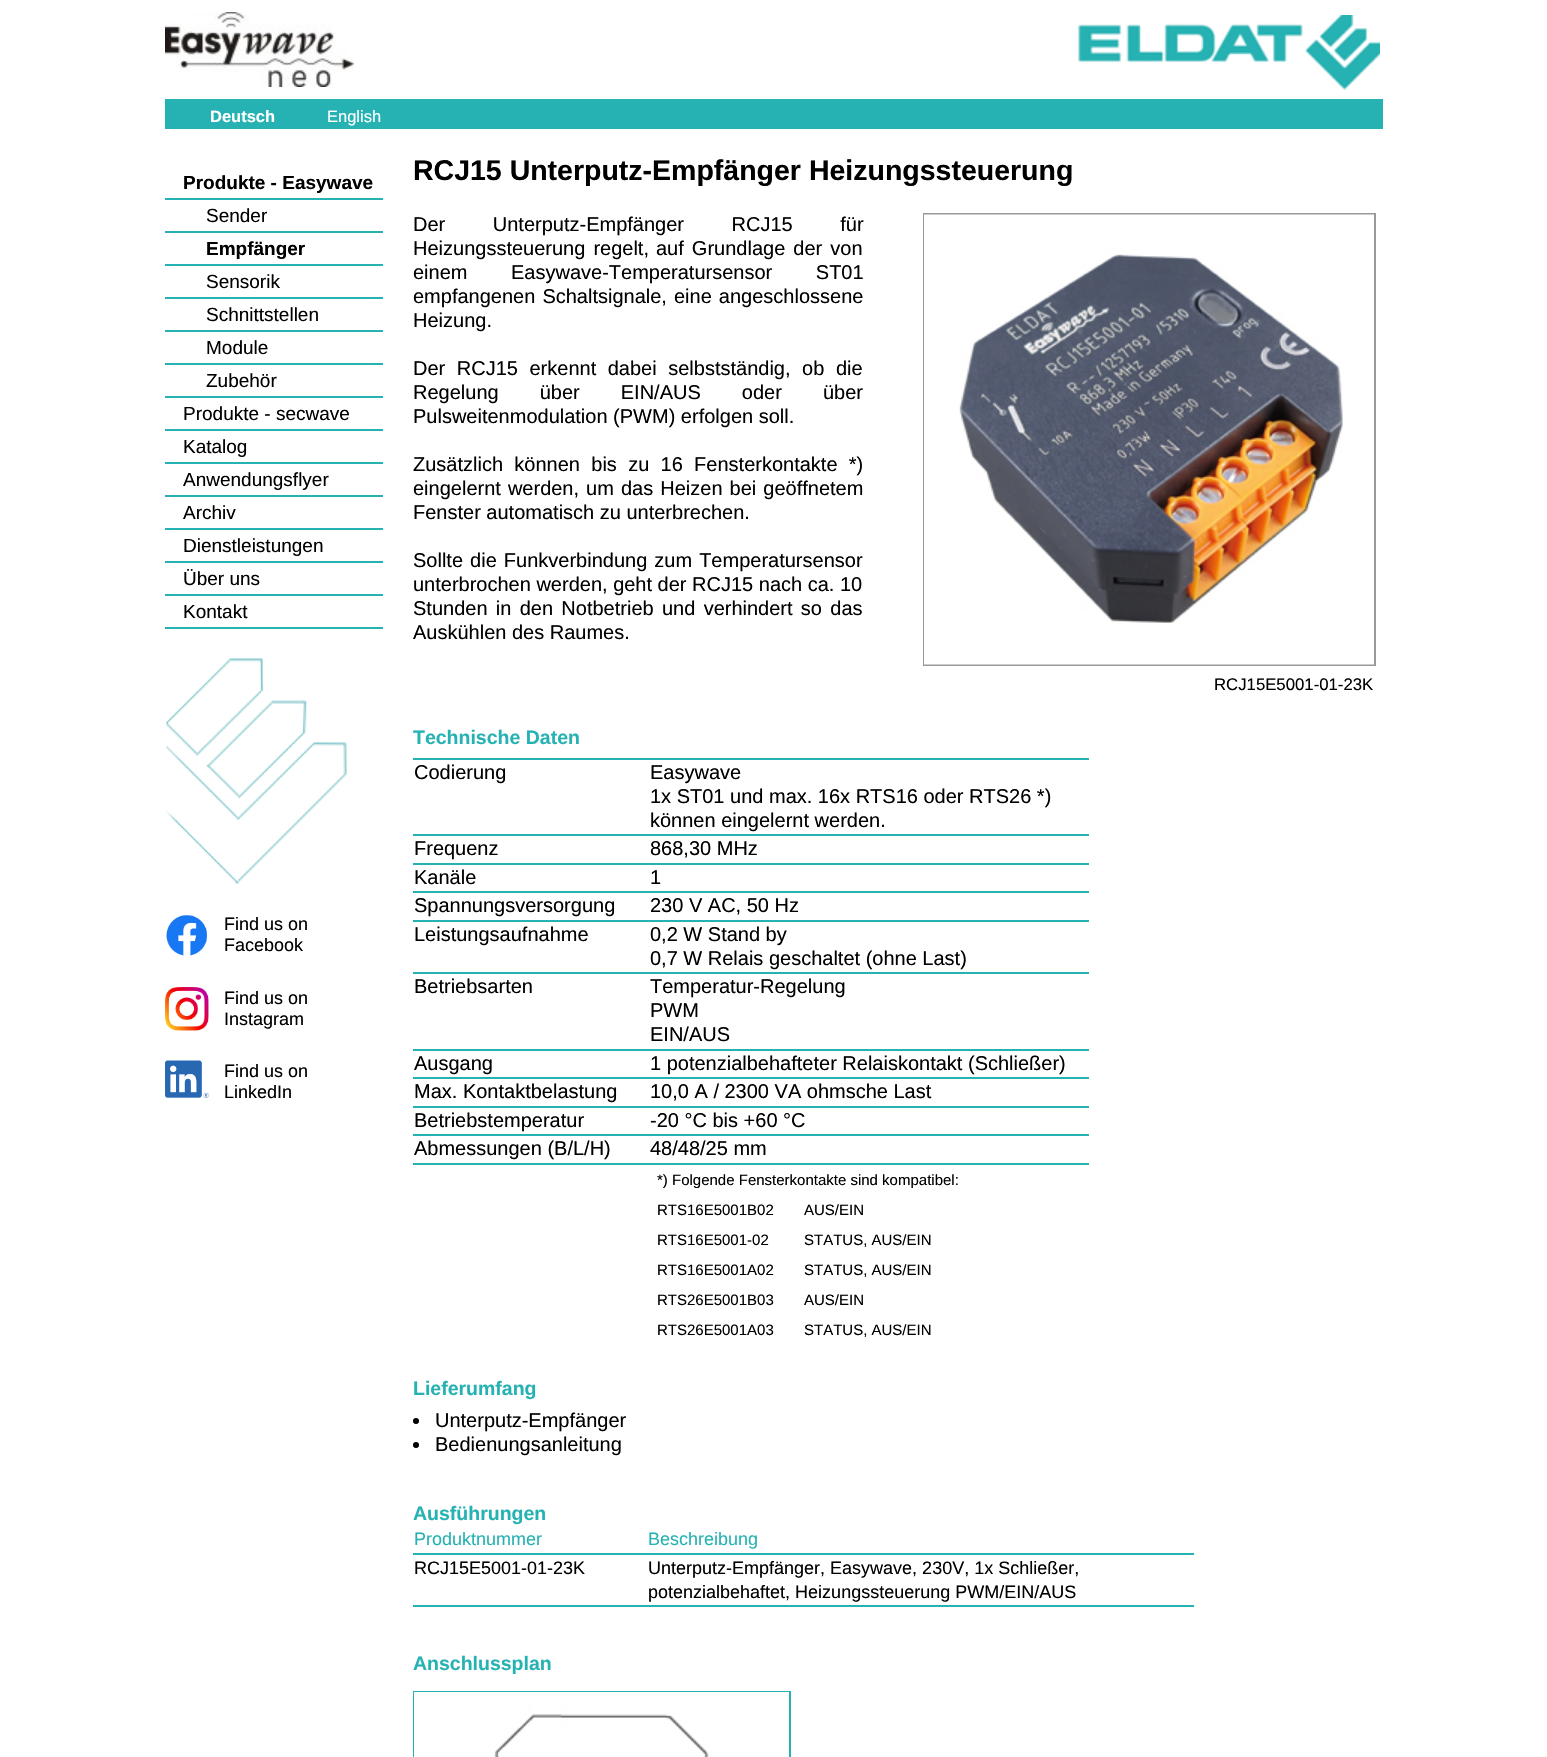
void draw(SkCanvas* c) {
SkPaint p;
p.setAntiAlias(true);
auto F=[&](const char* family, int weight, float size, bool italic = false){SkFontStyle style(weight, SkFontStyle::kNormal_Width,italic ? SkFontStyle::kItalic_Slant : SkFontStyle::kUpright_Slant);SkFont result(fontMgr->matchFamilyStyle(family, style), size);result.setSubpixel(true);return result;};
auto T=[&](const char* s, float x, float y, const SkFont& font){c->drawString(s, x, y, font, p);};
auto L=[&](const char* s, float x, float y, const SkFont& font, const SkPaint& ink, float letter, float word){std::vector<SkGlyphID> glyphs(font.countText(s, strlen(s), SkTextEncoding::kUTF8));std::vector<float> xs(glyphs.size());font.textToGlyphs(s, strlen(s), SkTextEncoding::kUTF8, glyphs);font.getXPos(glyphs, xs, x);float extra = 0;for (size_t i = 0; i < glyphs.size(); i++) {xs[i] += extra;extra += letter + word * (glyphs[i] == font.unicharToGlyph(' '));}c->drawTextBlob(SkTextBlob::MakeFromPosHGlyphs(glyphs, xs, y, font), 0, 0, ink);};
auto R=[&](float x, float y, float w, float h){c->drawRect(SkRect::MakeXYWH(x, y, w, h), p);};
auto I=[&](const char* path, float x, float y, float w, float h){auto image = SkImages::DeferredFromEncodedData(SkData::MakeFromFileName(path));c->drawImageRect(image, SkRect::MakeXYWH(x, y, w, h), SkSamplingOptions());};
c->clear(0xffffffff);
I("1.png",165,12,189,75);
I("2.png",1078,15,302,75);
p.setColor(0xff26b2b3);
R(165,99,1218,30);
auto f1 = F("Liberation Sans",700,16.5);
p.setColor(0xffffffff);
T("Deutsch",210,122,f1);
auto f2 = F("Liberation Sans",400,16.5);
T("English",327,122,f2);
p.setColor(0xff26b2b3);
R(165,198,218,2);
auto f3 = F("Liberation Sans",700,19);
p.setColor(0xff000000);
T("Produkte - Easywave",183,189,f3);
p.setColor(0xff26b2b3);
R(165,231,218,2);
auto f4 = F("Liberation Sans",400,19);
p.setColor(0xff000000);
T("Sender",206,222,f4);
p.setColor(0xff26b2b3);
R(165,264,218,2);
p.setColor(0xff000000);
T("Empfänger",206,255,f3);
p.setColor(0xff26b2b3);
R(165,297,218,2);
p.setColor(0xff000000);
T("Sensorik",206,288,f4);
p.setColor(0xff26b2b3);
R(165,330,218,2);
p.setColor(0xff000000);
T("Schnittstellen",206,321,f4);
p.setColor(0xff26b2b3);
R(165,363,218,2);
p.setColor(0xff000000);
T("Module",206,354,f4);
p.setColor(0xff26b2b3);
R(165,396,218,2);
p.setColor(0xff000000);
T("Zubehör",206,387,f4);
p.setColor(0xff26b2b3);
R(165,429,218,2);
p.setColor(0xff000000);
T("Produkte - secwave",183,420,f4);
p.setColor(0xff26b2b3);
R(165,462,218,2);
p.setColor(0xff000000);
T("Katalog",183,453,f4);
p.setColor(0xff26b2b3);
R(165,495,218,2);
p.setColor(0xff000000);
T("Anwendungsflyer",183,486,f4);
p.setColor(0xff26b2b3);
R(165,528,218,2);
p.setColor(0xff000000);
T("Archiv",183,519,f4);
p.setColor(0xff26b2b3);
R(165,561,218,2);
p.setColor(0xff000000);
T("Dienstleistungen",183,552,f4);
p.setColor(0xff26b2b3);
R(165,594,218,2);
p.setColor(0xff000000);
T("Über uns",183,585,f4);
p.setColor(0xff26b2b3);
R(165,627,218,2);
p.setColor(0xff000000);
T("Kontakt",183,618,f4);
I("3.png",166,658,181,226);
I("4.png",166,915,41,41);
auto f5 = F("Liberation Sans",400,18);
T("Find us on",224,930,f5);
T("Facebook",224,951,f5);
I("5.png",165,987,44,44);
T("Find us on",224,1004,f5);
T("Instagram",224,1025,f5);
I("6.png",165,1060,44,38);
T("Find us on",224,1077,f5);
T("LinkedIn",224,1098,f5);
auto f6 = F("Liberation Sans",700,28.5);
T("RCJ15 Unterputz-Empfänger Heizungssteuerung",413,180,f6);
auto f7 = F("Liberation Sans",400,20);
L("Der Unterputz-Empfänger RCJ15 für",413,231,f7,p,0,42);
L("Heizungssteuerung regelt,",413,255,f7,p,0,2.5);
L("auf Grundlage der von",656,255,f7,p,0,2.5);
L("einem Easywave-Temperatursensor ST01",413,279,f7,p,0,38);
L("empfangenen Schaltsignale, eine angeschlossene",413,303,f7,p,0,1.5);
T("Heizung.",413,327,f7);
L("Der RCJ15 erkennt dabei selbstständig, ob die",413,375,f7,p,0,6);
L("Regelung über EIN/AUS oder über",413,399,f7,p,0,35.5);
T("Pulsweitenmodulation (PWM) erfolgen soll.",413,423,f7);
L("Zusätzlich können bis zu 16 Fensterkontakte *)",413,471,f7,p,0,5.75);
L("eingelernt werden, um das Heizen bei geöffnetem",413,495,f7,p,0,1.5);
T("Fenster automatisch zu unterbrechen.",413,519,f7);
L("Sollte die Funkverbindung zum Temperatursensor",413,567,f7,p,0,1.5);
T("unterbrochen werden, geht der RCJ15 nach ca. 10",413,591,f7);
L("Stunden in den Notbetrieb und verhindert so das",413,615,f7,p,0,2.75);
T("Auskühlen des Raumes.",413,639,f7);
p.setStroke(true);
p.setStrokeWidth(2);
p.setColor(0xff999999);
c->drawRect(SkRect::MakeXYWH(924,214,451,451),p);
I("7.png",924,214,450,451);
auto f8 = F("Liberation Sans",400,16.75);
p.setStroke(false);
p.setColor(0xff000000);
T("RCJ15E5001-01-23K",1214,690,f8);
auto f9 = F("Liberation Sans",700,19.5);
p.setColor(0xff26b2b3);
T("Technische Daten",413,744,f9);
p.setColor(0xff000000);
T("Codierung",414,779,f7);
p.setColor(0xff26b2b3);
R(413,758,676,2);
p.setColor(0xff000000);
T("Easywave",650,779,f7);
T("1x ST01 und max. 16x RTS16 oder RTS26 *)",650,803,f7);
T("können eingelernt werden.",650,827,f7);
T("Frequenz",414,855,f7);
p.setColor(0xff26b2b3);
R(413,834,676,2);
p.setColor(0xff000000);
T("868,30 MHz",650,855,f7);
T("Kanäle",414,884,f7);
p.setColor(0xff26b2b3);
R(413,863,676,2);
p.setColor(0xff000000);
T("1",650,884,f7);
T("Spannungsversorgung",414,912,f7);
p.setColor(0xff26b2b3);
R(413,891,676,2);
p.setColor(0xff000000);
T("230 V AC, 50 Hz",650,912,f7);
T("Leistungsaufnahme",414,941,f7);
p.setColor(0xff26b2b3);
R(413,920,676,2);
p.setColor(0xff000000);
T("0,2 W Stand by",650,941,f7);
T("0,7 W Relais geschaltet (ohne Last)",650,965,f7);
T("Betriebsarten",414,993,f7);
p.setColor(0xff26b2b3);
R(413,972,676,2);
p.setColor(0xff000000);
T("Temperatur-Regelung",650,993,f7);
T("PWM",650,1017,f7);
T("EIN/AUS",650,1041,f7);
T("Ausgang",414,1070,f7);
p.setColor(0xff26b2b3);
R(413,1049,676,2);
p.setColor(0xff000000);
T("1 potenzialbehafteter Relaiskontakt (Schließer)",650,1070,f7);
T("Max. Kontaktbelastung",414,1098,f7);
p.setColor(0xff26b2b3);
R(413,1077,676,2);
p.setColor(0xff000000);
T("10,0 A / 2300 VA ohmsche Last",650,1098,f7);
T("Betriebstemperatur",414,1127,f7);
p.setColor(0xff26b2b3);
R(413,1106,676,2);
p.setColor(0xff000000);
T("-20 °C bis +60 °C",650,1127,f7);
T("Abmessungen (B/L/H)",414,1155,f7);
p.setColor(0xff26b2b3);
R(413,1134,676,2);
R(413,1163,676,2);
p.setColor(0xff000000);
T("48/48/25 mm",650,1155,f7);
auto f10 = F("Liberation Sans",400,15);
T("*) Folgende Fensterkontakte sind kompatibel:",657,1185,f10);
T("RTS16E5001B02",657,1215,f10);
T("AUS/EIN",804,1215,f10);
T("RTS16E5001-02",657,1245,f10);
T("STATUS, AUS/EIN",804,1245,f10);
T("RTS16E5001A02",657,1275,f10);
T("STATUS, AUS/EIN",804,1275,f10);
T("RTS26E5001B03",657,1305,f10);
T("AUS/EIN",804,1305,f10);
T("RTS26E5001A03",657,1335,f10);
T("STATUS, AUS/EIN",804,1335,f10);
p.setColor(0xff26b2b3);
T("Lieferumfang",413,1395,f9);
p.setColor(0xff000000);
c->drawCircle(416,1421,3,p);
T("Unterputz-Empfänger",435,1427,f7);
c->drawCircle(416,1445,3,p);
T("Bedienungsanleitung",435,1451,f7);
p.setColor(0xff26b2b3);
T("Ausführungen",413,1520,f9);
T("Produktnummer",414,1545,f5);
T("Beschreibung",648,1545,f5);
p.setColor(0xff000000);
T("RCJ15E5001-01-23K",414,1574,f5);
p.setColor(0xff26b2b3);
R(413,1553,781,2);
R(413,1605,781,2);
p.setColor(0xff000000);
T("Unterputz-Empfänger, Easywave, 230V, 1x Schließer,",648,1574,f5);
T("potenzialbehaftet, Heizungssteuerung PWM/EIN/AUS",648,1598,f5);
p.setColor(0xff26b2b3);
T("Anschlussplan",413,1670,f9);
p.setStroke(true);
c->drawRect(SkRect::MakeXYWH(414,1692,376,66),p);
I("8.png",414,1692,375,65);
}
